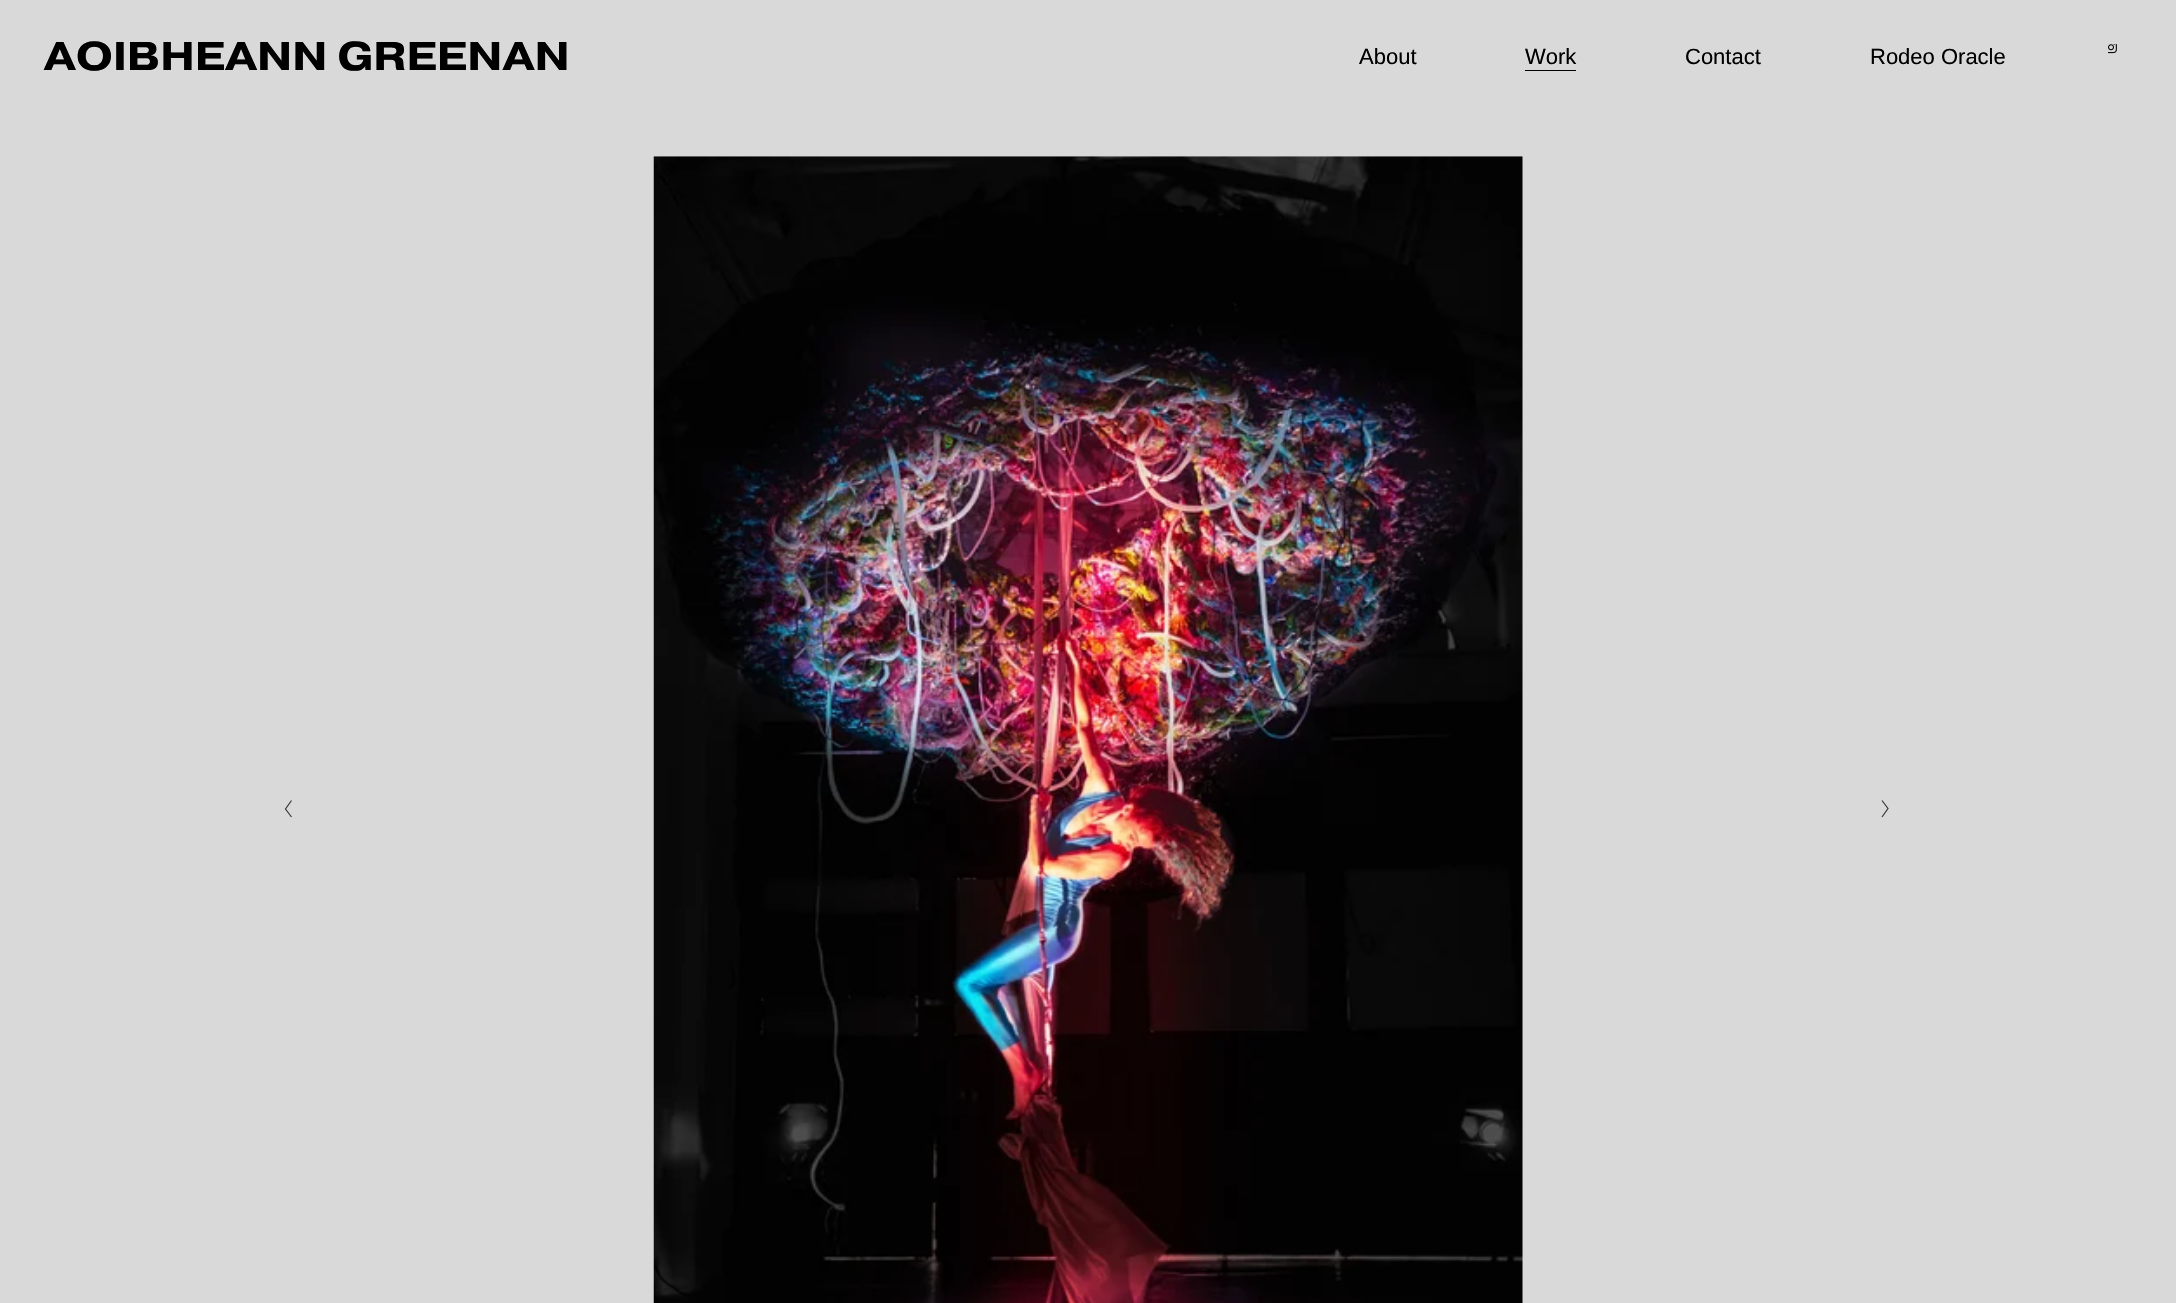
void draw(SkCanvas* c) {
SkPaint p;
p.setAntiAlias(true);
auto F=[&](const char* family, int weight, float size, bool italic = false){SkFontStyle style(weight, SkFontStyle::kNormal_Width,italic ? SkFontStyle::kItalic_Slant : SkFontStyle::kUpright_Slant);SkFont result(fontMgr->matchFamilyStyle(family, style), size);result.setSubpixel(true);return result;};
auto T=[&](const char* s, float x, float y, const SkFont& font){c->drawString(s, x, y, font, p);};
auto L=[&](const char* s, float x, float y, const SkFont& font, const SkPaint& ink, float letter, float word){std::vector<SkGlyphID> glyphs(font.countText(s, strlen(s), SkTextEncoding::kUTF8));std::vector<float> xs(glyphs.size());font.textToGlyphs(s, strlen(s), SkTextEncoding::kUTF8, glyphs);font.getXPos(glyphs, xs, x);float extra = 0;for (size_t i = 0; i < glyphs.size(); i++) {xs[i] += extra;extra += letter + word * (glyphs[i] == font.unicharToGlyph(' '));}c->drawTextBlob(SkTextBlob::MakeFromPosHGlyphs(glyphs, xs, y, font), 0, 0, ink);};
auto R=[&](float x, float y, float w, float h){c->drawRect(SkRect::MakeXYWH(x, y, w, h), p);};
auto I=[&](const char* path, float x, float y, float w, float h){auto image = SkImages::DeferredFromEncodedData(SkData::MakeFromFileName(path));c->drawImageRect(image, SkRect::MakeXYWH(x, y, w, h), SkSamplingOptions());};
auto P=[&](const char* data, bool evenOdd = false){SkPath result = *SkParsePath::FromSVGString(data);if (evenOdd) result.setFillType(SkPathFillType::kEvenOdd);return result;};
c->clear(0xffd9d9d9);
auto f1 = F("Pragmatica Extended",700,40);
p.setColor(0xff000000);
L("AOIBHEANN GREENAN",44,70,f1,p,.4,0);
auto f2 = F("Liberation Sans",400,22);
T("About",1359,64,f2);
R(1525,70,51,1);
T("Work",1525,64,f2);
T("Contact",1685,64,f2);
T("Rodeo Oracle",1870,64,f2);
I("1.png",2108,44,9,10);
I("2.png",653,156,870,1147);
p.setStroke(true);
p.setStrokeWidth(1.2);
p.setColor(0xff363636);
c->drawPath(P("M291.5 817l-6-8l6-8.5"),p);
c->drawPath(P("M1882 800.5l6 8l-6 8.5"),p);
}
